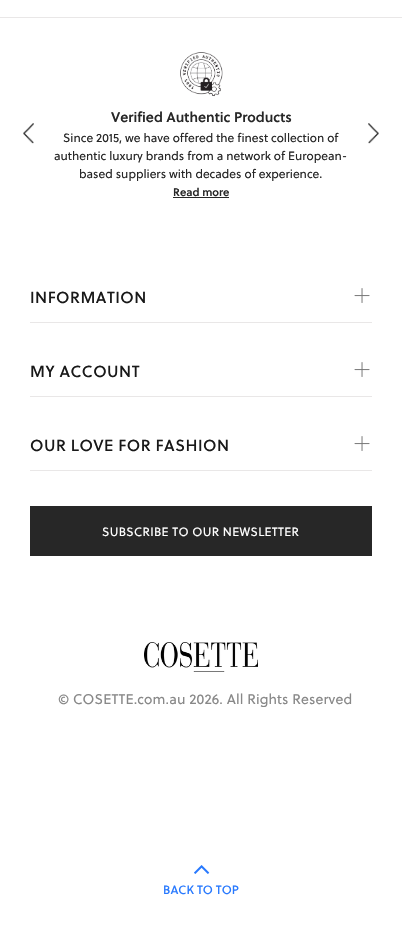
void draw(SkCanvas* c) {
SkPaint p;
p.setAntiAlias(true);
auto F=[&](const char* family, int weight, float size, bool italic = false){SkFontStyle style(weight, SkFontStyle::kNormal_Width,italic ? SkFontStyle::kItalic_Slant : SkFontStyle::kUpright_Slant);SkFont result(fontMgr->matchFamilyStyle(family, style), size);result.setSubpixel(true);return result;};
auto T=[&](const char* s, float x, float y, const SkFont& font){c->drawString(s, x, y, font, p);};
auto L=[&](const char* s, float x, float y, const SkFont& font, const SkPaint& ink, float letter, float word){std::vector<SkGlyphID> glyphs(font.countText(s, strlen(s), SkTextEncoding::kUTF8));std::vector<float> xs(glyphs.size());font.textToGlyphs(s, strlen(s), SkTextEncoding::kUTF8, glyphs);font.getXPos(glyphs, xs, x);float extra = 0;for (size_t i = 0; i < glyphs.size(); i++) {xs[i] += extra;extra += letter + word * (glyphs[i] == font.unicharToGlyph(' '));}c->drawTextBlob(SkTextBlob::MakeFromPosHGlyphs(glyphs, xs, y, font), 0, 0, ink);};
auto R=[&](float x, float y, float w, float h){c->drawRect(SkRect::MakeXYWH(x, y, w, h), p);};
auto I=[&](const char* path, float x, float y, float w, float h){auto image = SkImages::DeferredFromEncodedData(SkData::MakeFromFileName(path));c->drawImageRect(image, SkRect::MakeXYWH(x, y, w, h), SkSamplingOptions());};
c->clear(0xffffffff);
p.setColor(0xffe9e7e7);
R(0,17,402,1);
I("1.png",23,123,11,21);
I("2.png",180,52,43,45);
auto f1 = F("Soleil",600,14);
p.setColor(0xff272727);
T("Verified Authentic Products",111,122,f1);
auto f2 = F("Soleil",400,12);
T("Since 2015, we have offered the finest collection of",63,142,f2);
T("authentic luxury brands from a network of European-",54,160,f2);
T("based suppliers with decades of experience.",79,178,f2);
auto f3 = F("Soleil",600,11);
T("Read more",173,196,f3);
R(173,197,56,1);
I("3.png",368,123,11,21);
p.setColor(0xffe9e7e7);
R(30,322,342,1);
auto f4 = F("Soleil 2",400,16);
p.setColor(0xff191919);
L("INFORMATION",30,303,f4,p,.5,0);
I("4.png",354,288,16,15);
p.setColor(0xffe9e7e7);
R(30,396,342,1);
p.setColor(0xff191919);
L("MY ACCOUNT",30,377,f4,p,.5,0);
I("4.png",354,362,16,15);
p.setColor(0xffe9e7e7);
R(30,470,342,1);
p.setColor(0xff191919);
L("OUR LOVE FOR FASHION",30,451,f4,p,.5,0);
I("4.png",354,436,16,15);
p.setColor(0xff272727);
R(30,506,342,50);
p.setColor(0xffffffff);
L("SUBSCRIBE TO OUR NEWSLETTER",102,536,f2,p,.35,0);
I("5.png",144,642,114,30);
auto f5 = F("Soleil",400,14);
p.setColor(0xff888888);
L("© COSETTE.com.au 2026. All Rights Reserved",58,704,f5,p,.15,0);
I("6.png",194,865,16,9);
auto f6 = F("Soleil 2",400,12);
p.setColor(0xff2879fe);
T("BACK TO TOP",163,894,f6);
}
